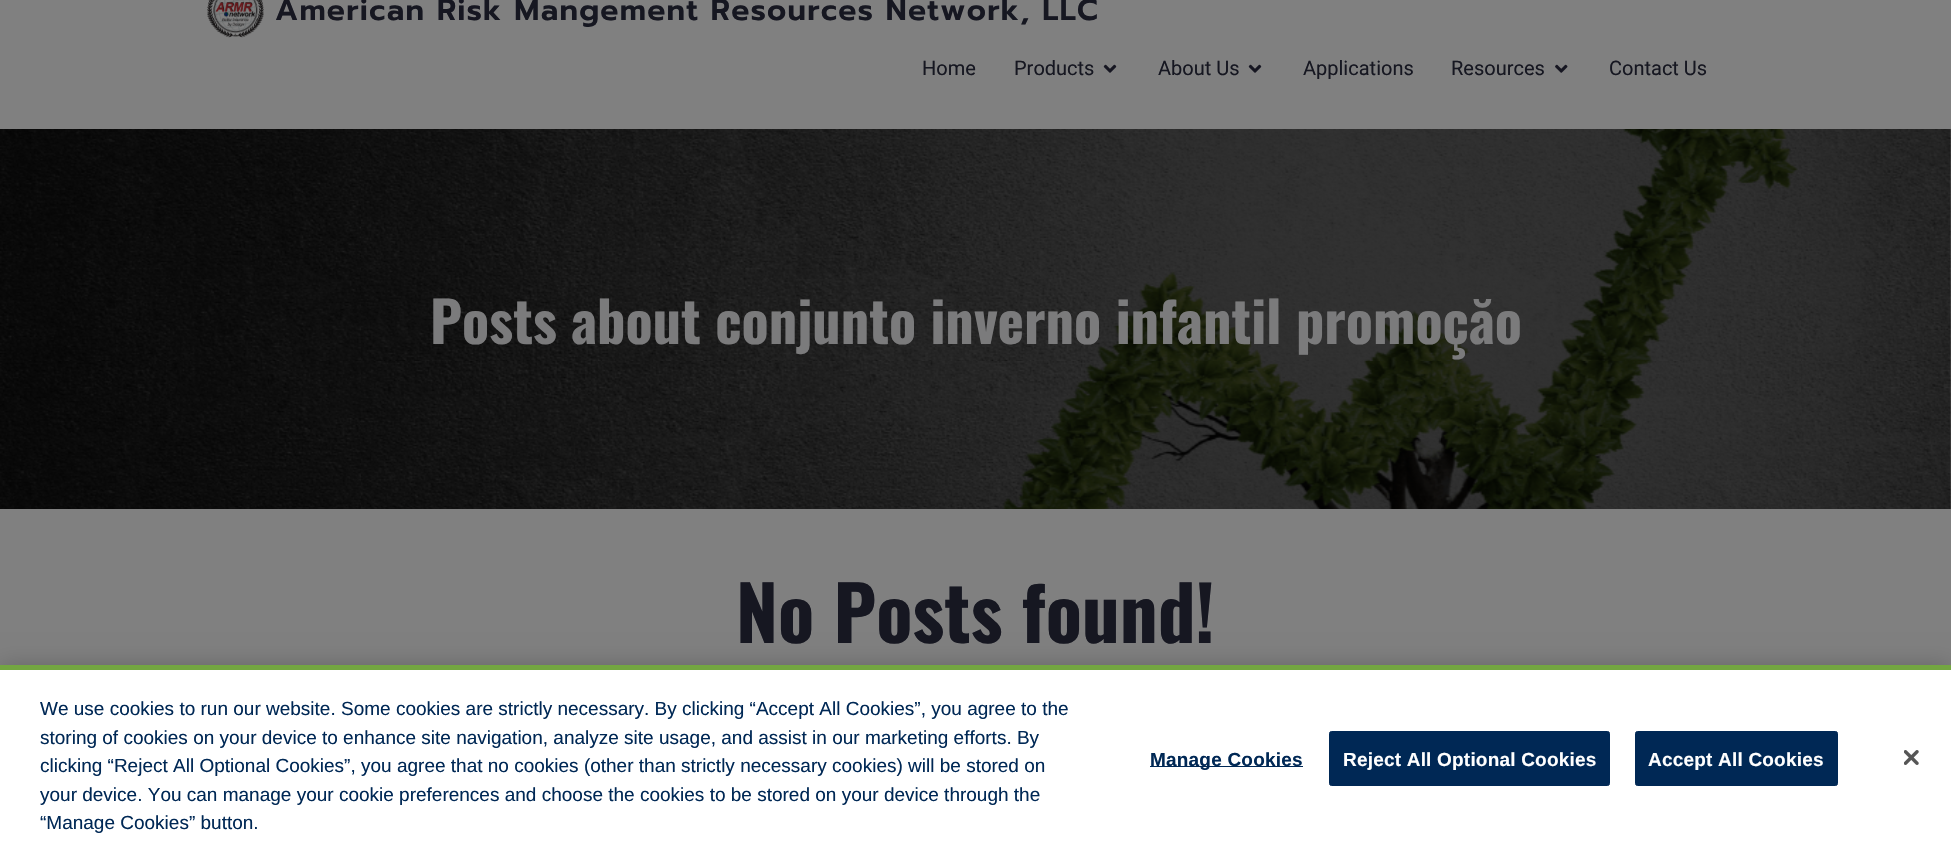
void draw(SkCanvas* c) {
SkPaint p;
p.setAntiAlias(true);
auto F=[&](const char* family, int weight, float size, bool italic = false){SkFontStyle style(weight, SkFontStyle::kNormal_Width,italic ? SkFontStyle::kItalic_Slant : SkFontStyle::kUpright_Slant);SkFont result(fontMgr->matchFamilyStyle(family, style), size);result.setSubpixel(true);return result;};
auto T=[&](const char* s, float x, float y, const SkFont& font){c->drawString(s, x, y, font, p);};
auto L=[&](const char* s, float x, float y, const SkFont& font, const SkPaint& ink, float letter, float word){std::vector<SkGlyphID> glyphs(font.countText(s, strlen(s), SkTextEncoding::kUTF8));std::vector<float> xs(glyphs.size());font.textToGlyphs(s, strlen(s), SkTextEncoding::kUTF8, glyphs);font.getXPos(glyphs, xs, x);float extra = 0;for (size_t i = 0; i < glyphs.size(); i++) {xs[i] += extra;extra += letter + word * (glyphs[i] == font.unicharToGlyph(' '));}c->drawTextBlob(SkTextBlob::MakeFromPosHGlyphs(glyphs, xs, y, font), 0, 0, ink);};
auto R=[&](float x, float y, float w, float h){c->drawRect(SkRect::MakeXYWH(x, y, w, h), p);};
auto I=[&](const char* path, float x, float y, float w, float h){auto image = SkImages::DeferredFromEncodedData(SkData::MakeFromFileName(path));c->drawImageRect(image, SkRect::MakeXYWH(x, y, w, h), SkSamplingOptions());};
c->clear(0xff808080);
I("1.png",207,0,57,38);
auto f1 = F("Prompt",600,30);
p.setColor(0xff161721);
L("American Risk Mangement Resources Network, LLC",275,20,f1,p,1.25,0);
auto f2 = F("Roboto",400,20);
T("Home",922,75,f2);
T("Products",1014,75,f2);
I("2.png",1103,64,14,9);
T("About Us",1158,75,f2);
I("2.png",1248,64,14,9);
T("Applications",1303,75,f2);
T("Resources",1451,75,f2);
I("3.png",1555,64,13,9);
T("Contact Us",1609,75,f2);
I("4.png",0,129,1951,380);
auto f3 = F("Oswald",700,56.25);
p.setColor(0xff7b7b7c);
T("Posts about conjunto inverno infantil promoçăo",430,344,f3);
auto f4 = F("Oswald",700,75);
p.setColor(0xff161721);
T("No Posts found!",736,643,f4);
p.setColor(0x33000000);
p.setMaskFilter(SkMaskFilter::MakeBlur(kNormal_SkBlurStyle, 11));
c->drawRect(SkRect::MakeXYWH(0,665,1951,185),p);
p.setMaskFilter(nullptr);
p.setColor(0xffffffff);
R(0,670,1951,180);
p.setColor(0xff73a641);
R(0,665,1951,5);
auto f5 = F("Liberation Sans",400,19);
p.setColor(0xff002855);
T("We use cookies to run our website. Some cookies are strictly necessary. By clicking “Accept All Cookies”, you agree to the",40,715,f5);
T("storing of cookies on your device to enhance site navigation, analyze site usage, and assist in our marketing efforts. By",40,744,f5);
T("clicking “Reject All Optional Cookies”, you agree that no cookies (other than strictly necessary cookies) will be stored on",40,772,f5);
T("your device. You can manage your cookie preferences and choose the cookies to be stored on your device through the",40,801,f5);
T("“Manage Cookies” button.",40,829,f5);
R(1150,766,153,1);
auto f6 = F("Liberation Sans",700,19);
L("Manage Cookies",1150,766,f6,p,.2,0);
c->drawRoundRect(SkRect::MakeXYWH(1329.5,731.5,280,54),2,2,p);
p.setStroke(true);
p.setStrokeWidth(1);
c->drawRoundRect(SkRect::MakeXYWH(1329.5,731.5,280,54),2,2,p);
p.setStroke(false);
p.setColor(0xffffffff);
L("Reject All Optional Cookies",1343,766,f6,p,.2,0);
p.setColor(0xff002855);
c->drawRoundRect(SkRect::MakeXYWH(1635.5,731.5,202,54),2,2,p);
p.setStroke(true);
c->drawRoundRect(SkRect::MakeXYWH(1635.5,731.5,202,54),2,2,p);
p.setStroke(false);
p.setColor(0xffffffff);
L("Accept All Cookies",1648,766,f6,p,.2,0);
I("5.png",1904,750,15,15);
}
